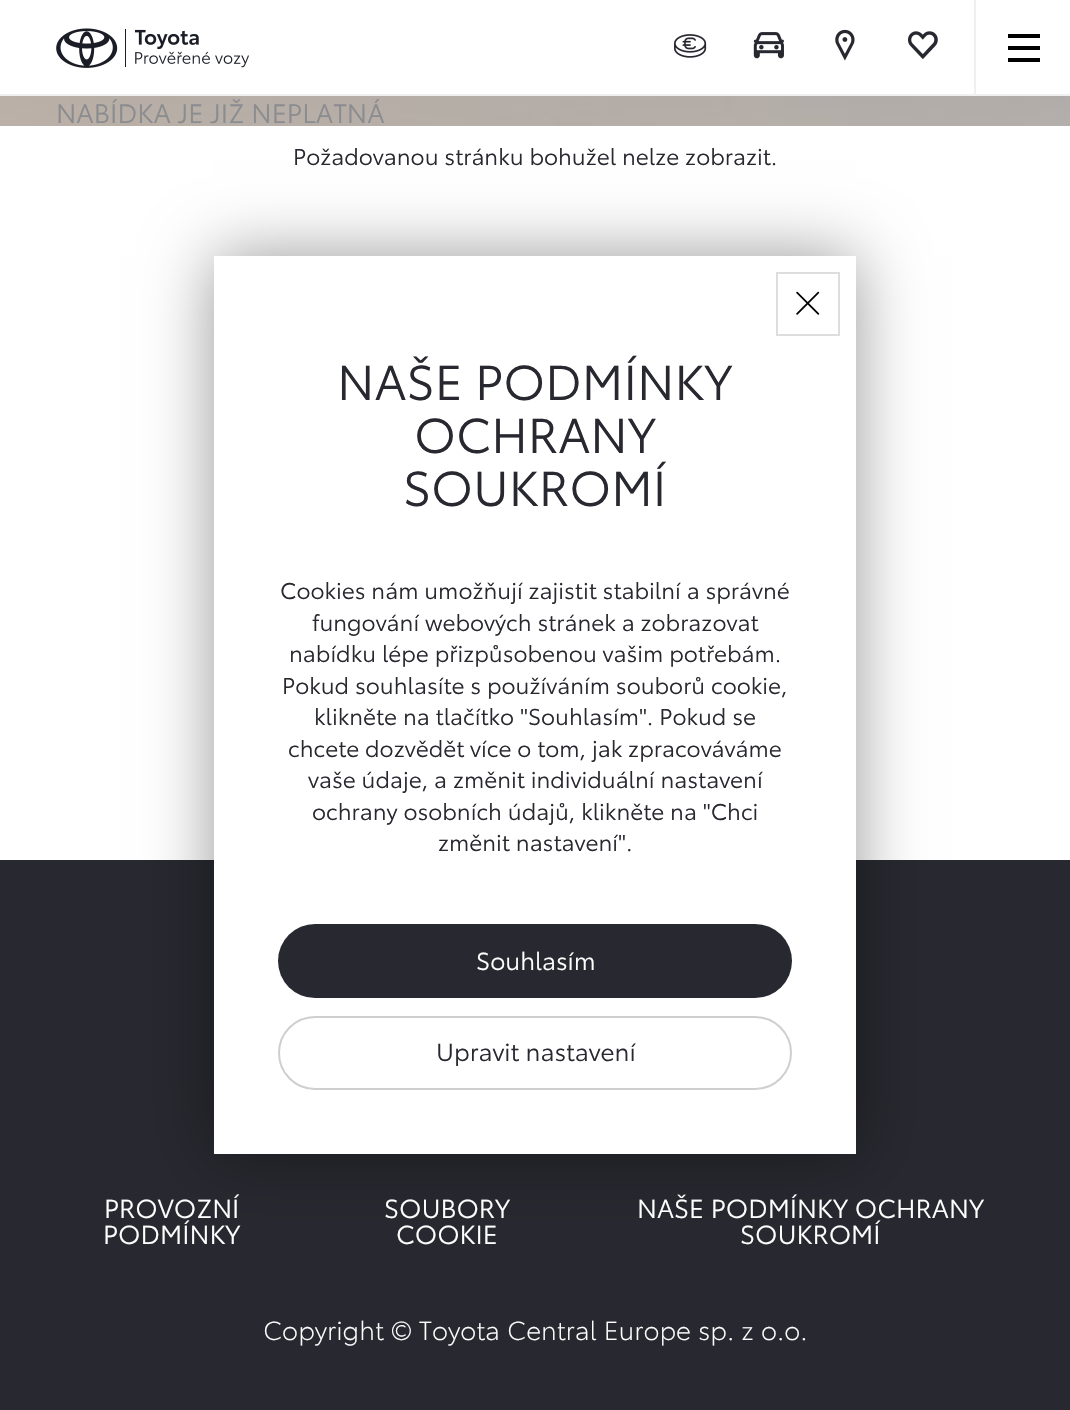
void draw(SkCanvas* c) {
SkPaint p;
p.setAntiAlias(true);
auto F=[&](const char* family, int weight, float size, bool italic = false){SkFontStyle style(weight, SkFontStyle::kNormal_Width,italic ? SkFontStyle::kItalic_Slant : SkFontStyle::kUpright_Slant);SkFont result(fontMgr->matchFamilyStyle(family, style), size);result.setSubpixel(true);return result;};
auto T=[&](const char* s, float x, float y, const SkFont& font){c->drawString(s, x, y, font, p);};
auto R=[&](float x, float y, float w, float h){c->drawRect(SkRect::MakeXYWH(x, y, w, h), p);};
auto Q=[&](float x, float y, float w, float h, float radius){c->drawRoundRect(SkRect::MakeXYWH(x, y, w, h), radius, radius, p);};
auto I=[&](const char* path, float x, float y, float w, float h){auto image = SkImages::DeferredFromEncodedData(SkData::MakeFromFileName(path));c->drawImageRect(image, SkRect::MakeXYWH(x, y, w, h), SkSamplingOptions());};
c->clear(0xffffffff);
p.setColor(0xffeff0f0);
R(0,94,1070,2);
I("1.png",56,28,193,40);
I("2.png",674,34,33,24);
I("3.png",753,32,31,27);
I("4.png",835,29,20,32);
I("5.png",908,31,30,29);
R(974,0,2,94);
p.setColor(0xff000000);
R(1008,46,32,4);
R(1008,34,32,4);
R(1008,58,32,4);
I("6.png",0,96,1070,30);
auto f1 = F("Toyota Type",400,26.25);
p.setColor(0xff8b8c90);
T("NABÍDKA JE JIŽ NEPLATNÁ",56,123,f1);
auto f2 = F("Toyota Type",400,22.5);
p.setColor(0xff282830);
T("Požadovanou stránku bohužel nelze zobrazit.",293,165,f2);
R(0,860,1070,550);
p.setColor(0x66000000);
p.setMaskFilter(SkMaskFilter::MakeBlur(kNormal_SkBlurStyle, 32));
c->drawRect(SkRect::MakeXYWH(214,256,642,898),p);
p.setMaskFilter(nullptr);
p.setColor(0xffffffff);
R(214,256,642,898);
p.setStroke(true);
p.setStrokeWidth(2);
p.setColor(0xffdddddd);
c->drawRect(SkRect::MakeXYWH(777,273,62,62),p);
I("7.png",796,291,24,24);
auto f3 = F("Toyota Type",400,48.25);
p.setStroke(false);
p.setColor(0xff282830);
T("NAŠE PODMÍNKY",337,400,f3);
T("OCHRANY",414,453,f3);
T("SOUKROMÍ",403,506,f3);
T("Cookies nám umožňují zajistit stabilní a správné",280,599,f2);
T("fungování webových stránek a zobrazovat",312,631,f2);
T("nabídku lépe přizpůsobenou vašim potřebám.",289,662,f2);
T("Pokud souhlasíte s používáním souborů cookie,",282,694,f2);
T("klikněte na tlačítko \"Souhlasím\". Pokud se",314,725,f2);
T("chcete dozvědět více o tom, jak zpracováváme",288,757,f2);
T("vaše údaje, a změnit individuální nastavení",308,788,f2);
T("ochrany osobních údajů, klikněte na \"Chci",312,820,f2);
T("změnit nastavení\".",438,851,f2);
Q(278,924,514,74,37);
auto f4 = F("Toyota Type",400,24.25);
p.setColor(0xffffffff);
T("Souhlasím",476,970,f4);
p.setStroke(true);
p.setColor(0xffcecfd0);
c->drawRoundRect(SkRect::MakeXYWH(279,1017,512,72),36,36,p);
p.setStroke(false);
p.setColor(0xff282830);
T("Upravit nastavení",436,1061,f4);
auto f5 = F("Toyota Type",400,25.75);
p.setColor(0xffffffff);
T("PROVOZNÍ",104,1218,f5);
T("PODMÍNKY",103,1244,f5);
T("SOUBORY",384,1218,f5);
T("COOKIE",396,1244,f5);
T("NAŠE PODMÍNKY OCHRANY",637,1218,f5);
T("SOUKROMÍ",740,1244,f5);
auto f6 = F("Toyota Type",300,25.75);
T("Copyright © Toyota Central Europe sp. z o.o.",263,1340,f6);
}
